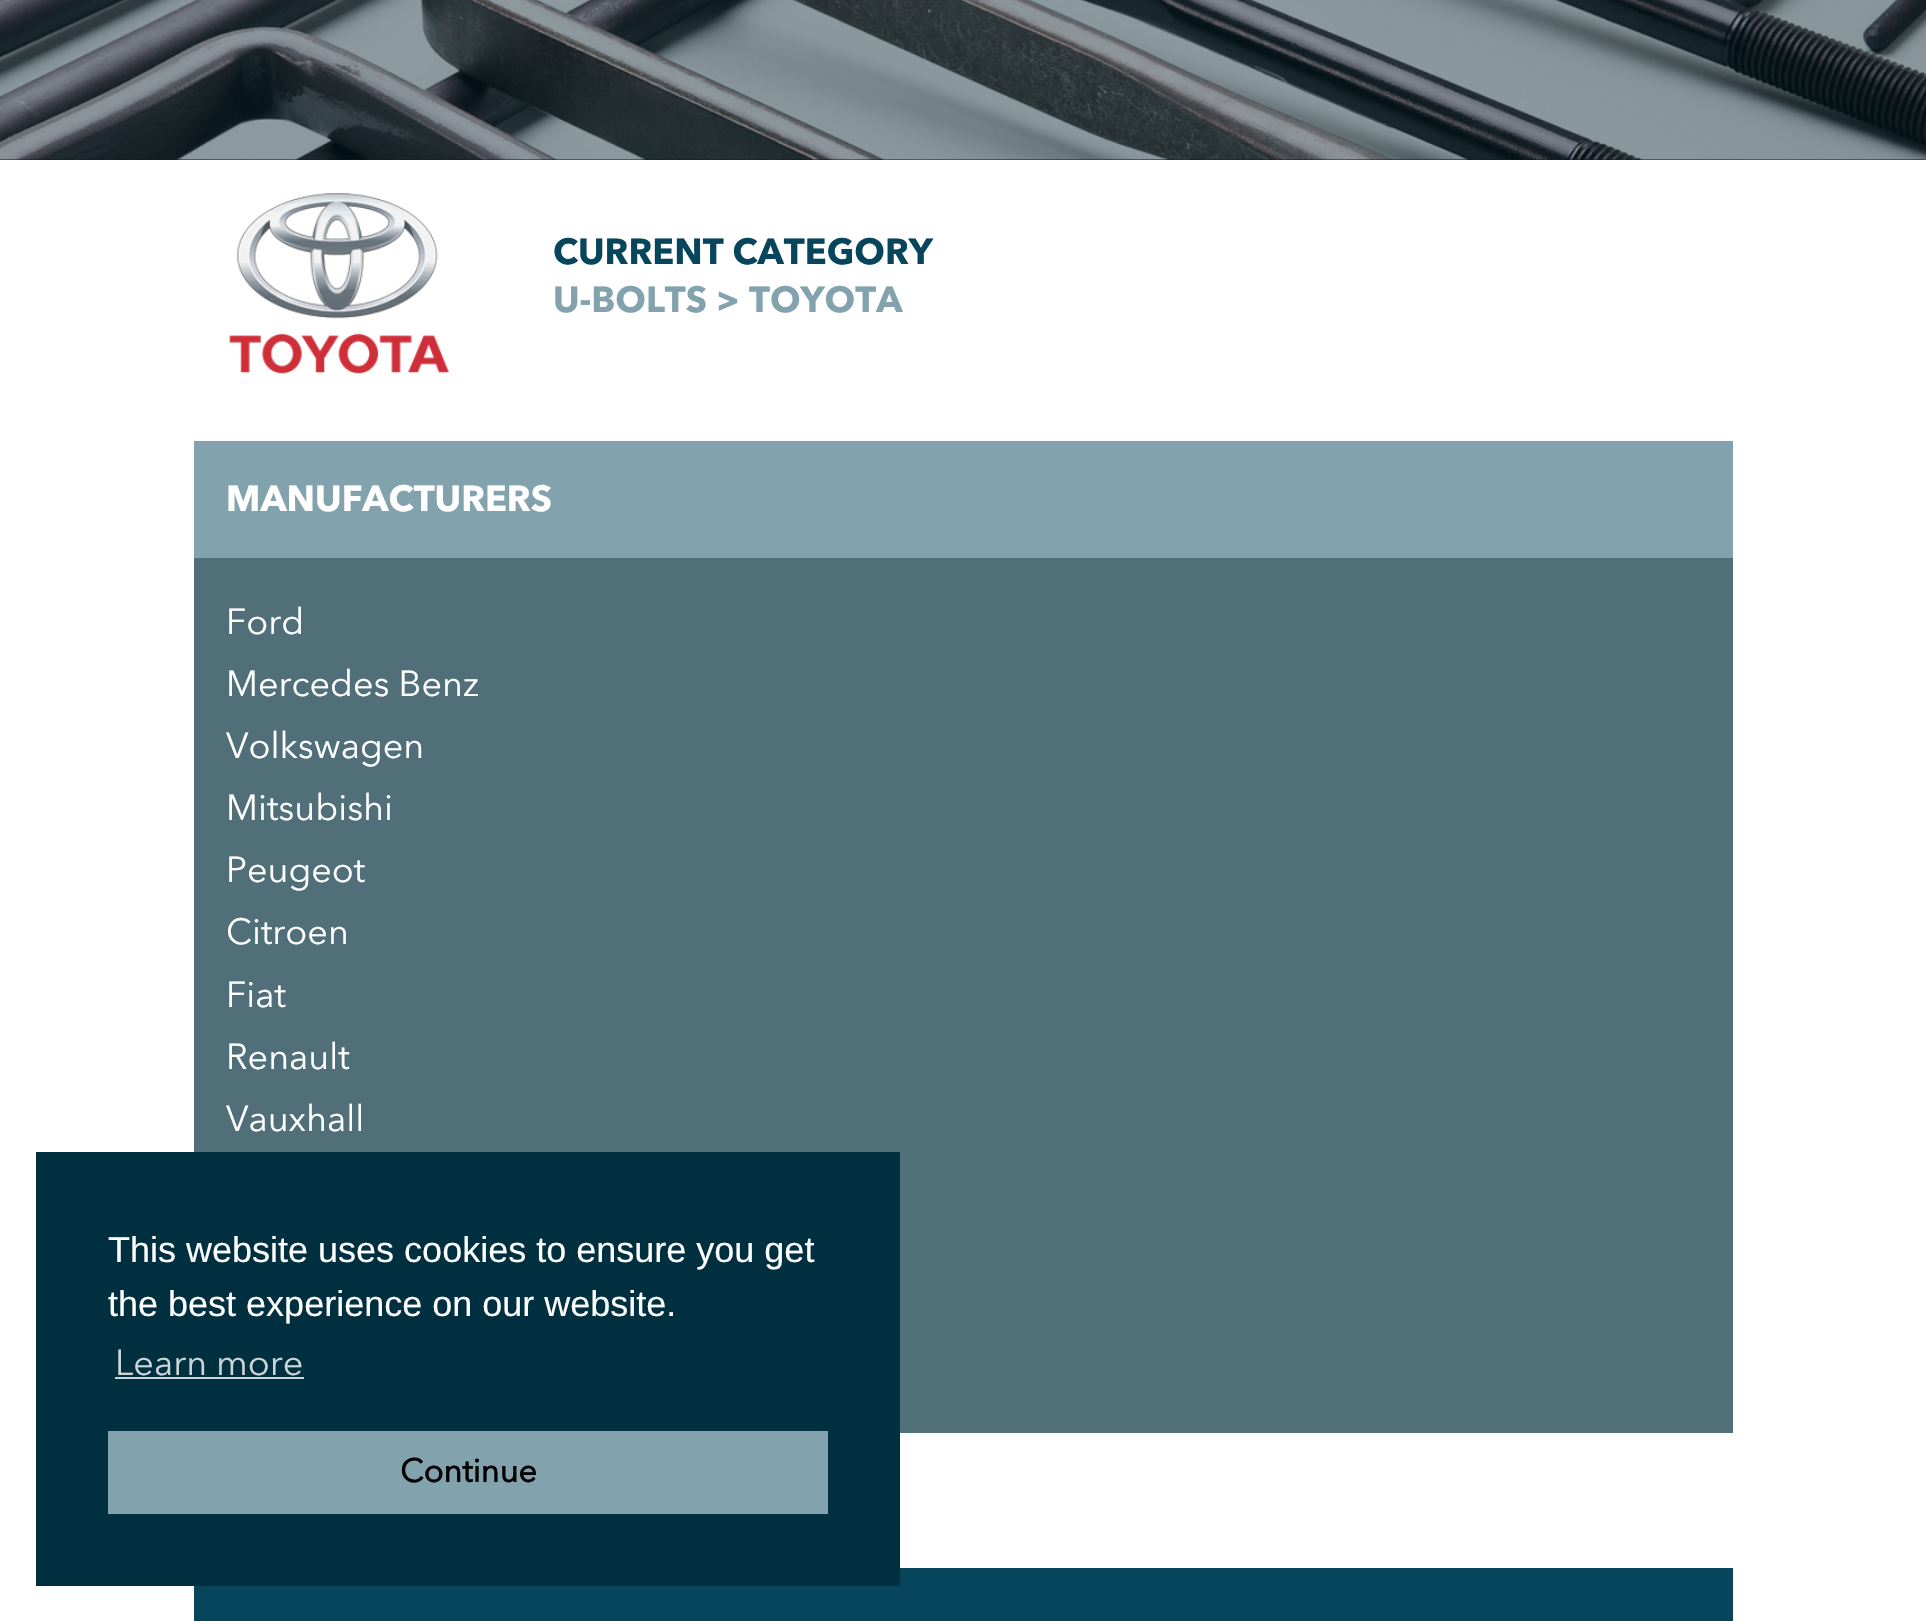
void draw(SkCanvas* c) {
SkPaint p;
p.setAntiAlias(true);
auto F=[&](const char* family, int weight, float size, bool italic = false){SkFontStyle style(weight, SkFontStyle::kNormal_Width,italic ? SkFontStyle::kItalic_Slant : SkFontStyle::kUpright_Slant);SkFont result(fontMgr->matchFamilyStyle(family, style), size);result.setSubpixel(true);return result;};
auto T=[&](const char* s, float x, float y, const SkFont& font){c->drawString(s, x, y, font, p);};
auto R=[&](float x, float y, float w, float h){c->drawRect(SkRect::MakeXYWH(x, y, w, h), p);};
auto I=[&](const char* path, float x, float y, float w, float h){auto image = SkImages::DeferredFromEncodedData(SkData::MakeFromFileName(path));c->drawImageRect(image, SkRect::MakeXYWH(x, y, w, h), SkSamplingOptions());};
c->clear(0xffffffff);
p.setColor(0xff03212b);
R(0,0,1926,160);
I("1.png",0,0,1926,160);
I("2.png",229,193,220,181);
auto f1 = F("Avenir Next",700,36);
p.setColor(0xff06455b);
T("CURRENT CATEGORY",553,264,f1);
p.setColor(0xff82a2ad);
T("U-BOLTS > TOYOTA",553,312,f1);
R(194,441,1539,117);
p.setColor(0xffffffff);
T("MANUFACTURERS",226,511,f1);
p.setColor(0xff506f79);
R(194,558,1539,875);
auto f2 = F("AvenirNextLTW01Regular",400,36);
p.setColor(0xffffffff);
T("Ford",226,634,f2);
T("Mercedes Benz",226,696,f2);
T("Volkswagen",226,758,f2);
T("Mitsubishi",226,820,f2);
T("Peugeot",226,882,f2);
T("Citroen",226,944,f2);
T("Fiat",226,1007,f2);
T("Renault",226,1069,f2);
T("Vauxhall",226,1131,f2);
p.setColor(0xff06455b);
R(194,1568,1539,53);
p.setColor(0xff002f3f);
R(36,1152,864,434);
auto f3 = F("Liberation Sans",400,36);
p.setColor(0xffffffff);
T("This website uses cookies to ensure you get",108,1262,f3);
T("the best experience on our website.",108,1316,f3);
p.setColor(0xffccd5d9);
T("Learn more",115,1375,f2);
R(115,1377,189,2);
p.setColor(0xff82a2ad);
R(108,1431,720,83);
auto f4 = F("AvenirNextLTW01Regular",700,32.5);
p.setColor(0xff000000);
T("Continue",400,1482,f4);
}
